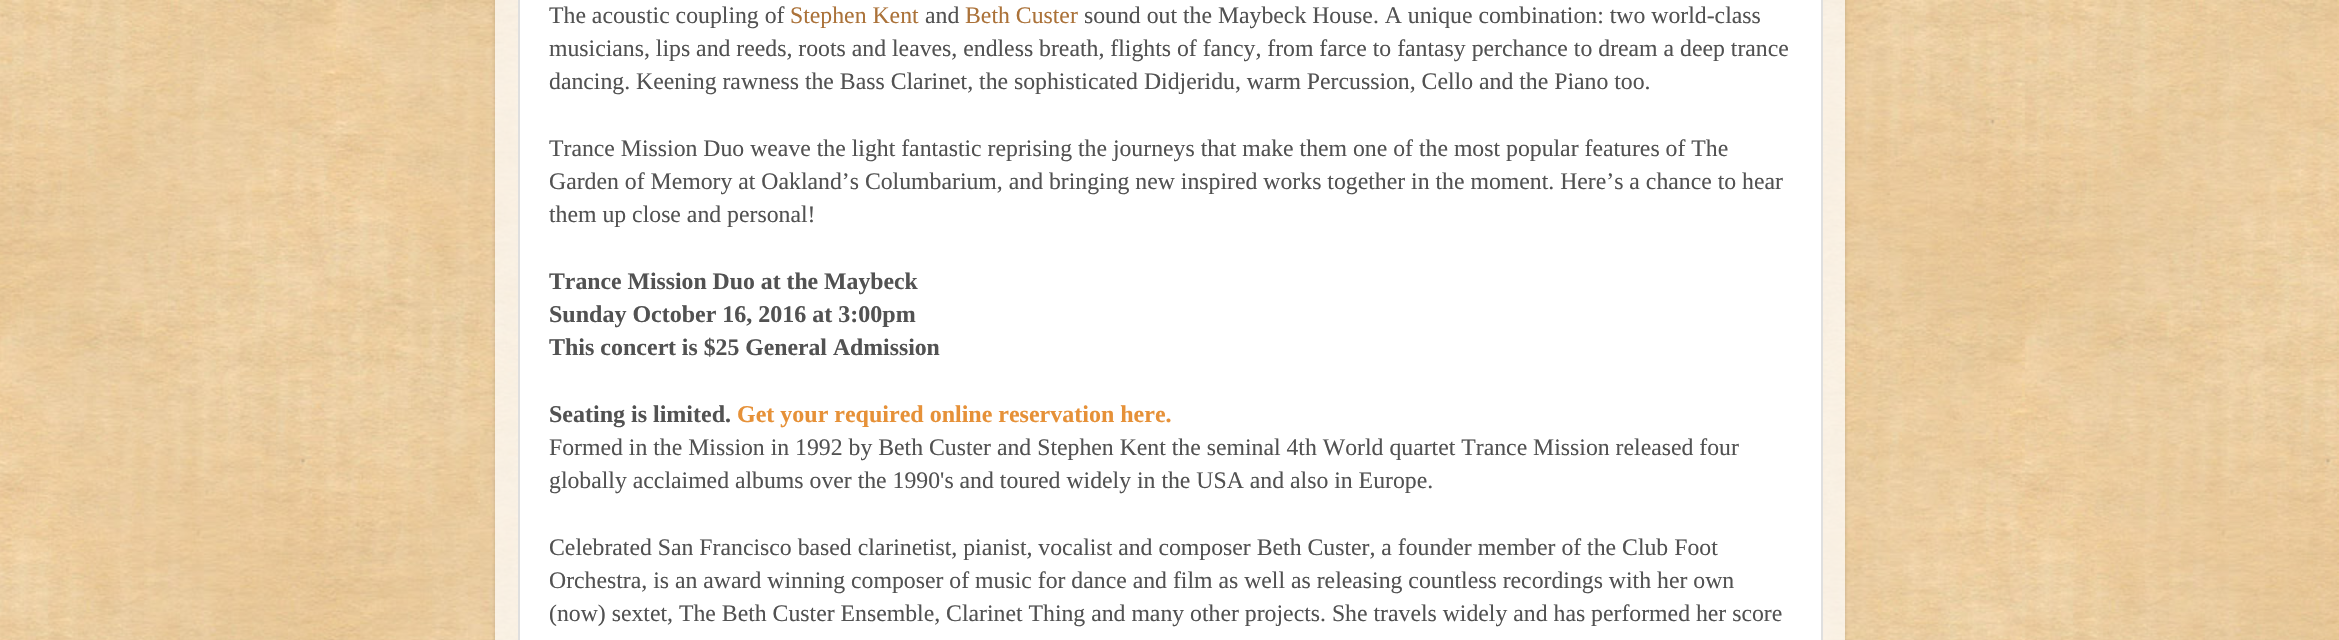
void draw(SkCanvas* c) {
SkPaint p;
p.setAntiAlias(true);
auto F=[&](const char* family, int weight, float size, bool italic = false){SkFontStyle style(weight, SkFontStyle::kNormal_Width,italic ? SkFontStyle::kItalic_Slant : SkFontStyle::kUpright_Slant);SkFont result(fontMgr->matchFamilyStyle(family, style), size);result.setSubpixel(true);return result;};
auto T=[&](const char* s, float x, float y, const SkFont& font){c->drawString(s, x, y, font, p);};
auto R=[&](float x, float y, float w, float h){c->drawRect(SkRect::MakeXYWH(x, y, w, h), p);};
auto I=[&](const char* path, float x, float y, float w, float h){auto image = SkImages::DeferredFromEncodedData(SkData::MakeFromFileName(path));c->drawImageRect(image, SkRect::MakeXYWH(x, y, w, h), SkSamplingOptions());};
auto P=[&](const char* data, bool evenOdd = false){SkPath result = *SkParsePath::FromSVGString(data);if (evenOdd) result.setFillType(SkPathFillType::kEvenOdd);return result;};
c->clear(0xffffffff);
I("1.png",0,0,2339,640);
c->save();
c->clipPath(P("M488 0h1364v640h-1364zm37-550h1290c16.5 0 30 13.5 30 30v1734h-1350v-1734c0-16.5 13.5-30 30-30z",true),true);
p.setColor(0x26000000);
p.setMaskFilter(SkMaskFilter::MakeBlur(kNormal_SkBlurStyle, 2));
c->drawRoundRect(SkRect::MakeXYWH(495,-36,1350,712),30,30,p);
p.setMaskFilter(nullptr);
c->restore();
p.setColor(0xb3ffffff);
R(495,0,1350,640);
p.setColor(0xffffffff);
c->drawRect(SkRect::MakeXYWH(519,-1,1303,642),p);
p.setStroke(true);
p.setStrokeWidth(2);
p.setColor(0xffdfdfdf);
c->drawRect(SkRect::MakeXYWH(519,-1,1303,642),p);
auto f1 = F("Liberation Serif",400,23.75);
p.setStroke(false);
p.setColor(0xff525252);
T("The acoustic coupling of",549,23,f1);
p.setColor(0xffab7239);
T("Stephen Kent",790,23,f1);
p.setColor(0xff525252);
T("and",925,23,f1);
p.setColor(0xffab7239);
T("Beth Custer",965,23,f1);
p.setColor(0xff525252);
T("sound out the Maybeck House. A unique combination: two world-class",1084,23,f1);
T("musicians, lips and reeds, roots and leaves, endless breath, flights of fancy, from farce to fantasy perchance to dream a deep trance",549,56,f1);
T("dancing. Keening rawness the Bass Clarinet, the sophisticated Didjeridu, warm Percussion, Cello and the Piano too.",549,89,f1);
T("Trance Mission Duo weave the light fantastic reprising the journeys that make them one of the most popular features of The",549,156,f1);
T("Garden of Memory at Oakland’s Columbarium, and bringing new inspired works together in the moment. Here’s a chance to hear",549,189,f1);
T("them up close and personal!",549,222,f1);
auto f2 = F("Liberation Serif",700,23.75);
T("Trance Mission Duo at the Maybeck",549,289,f2);
auto f3 = F("Liberation Serif",700,24);
T("Sunday October 16, 2016 at 3:00pm",549,322,f3);
T("This concer",549,355,f3);
T("t is $25 General Admission",668,355,f2);
T("Seating is limited.",549,422,f3);
p.setColor(0xffe69138);
T("Get your required online reservation here.",737,422,f3);
p.setColor(0xff525252);
T("Formed in the Mission in 1992 by Beth Custer and Stephen Kent the seminal 4th World quartet Trance Mission released four",549,455,f1);
T("globally acclaimed albums over the 1990's and toured widely in the USA and also in Europe.",549,488,f1);
T("Celebrated San Francisco based clarinetist, pianist, vocalist and composer Beth Custer, a founder member of the Club Foot",549,555,f1);
T("Orchestra, is an award winning composer of music for dance and film as well as releasing countless recordings with her own",549,588,f1);
T("(now) sextet, The Beth Custer Ensemble, Clarinet Thing and many other projects. She travels widely and has performed her score",549,621,f1);
}
